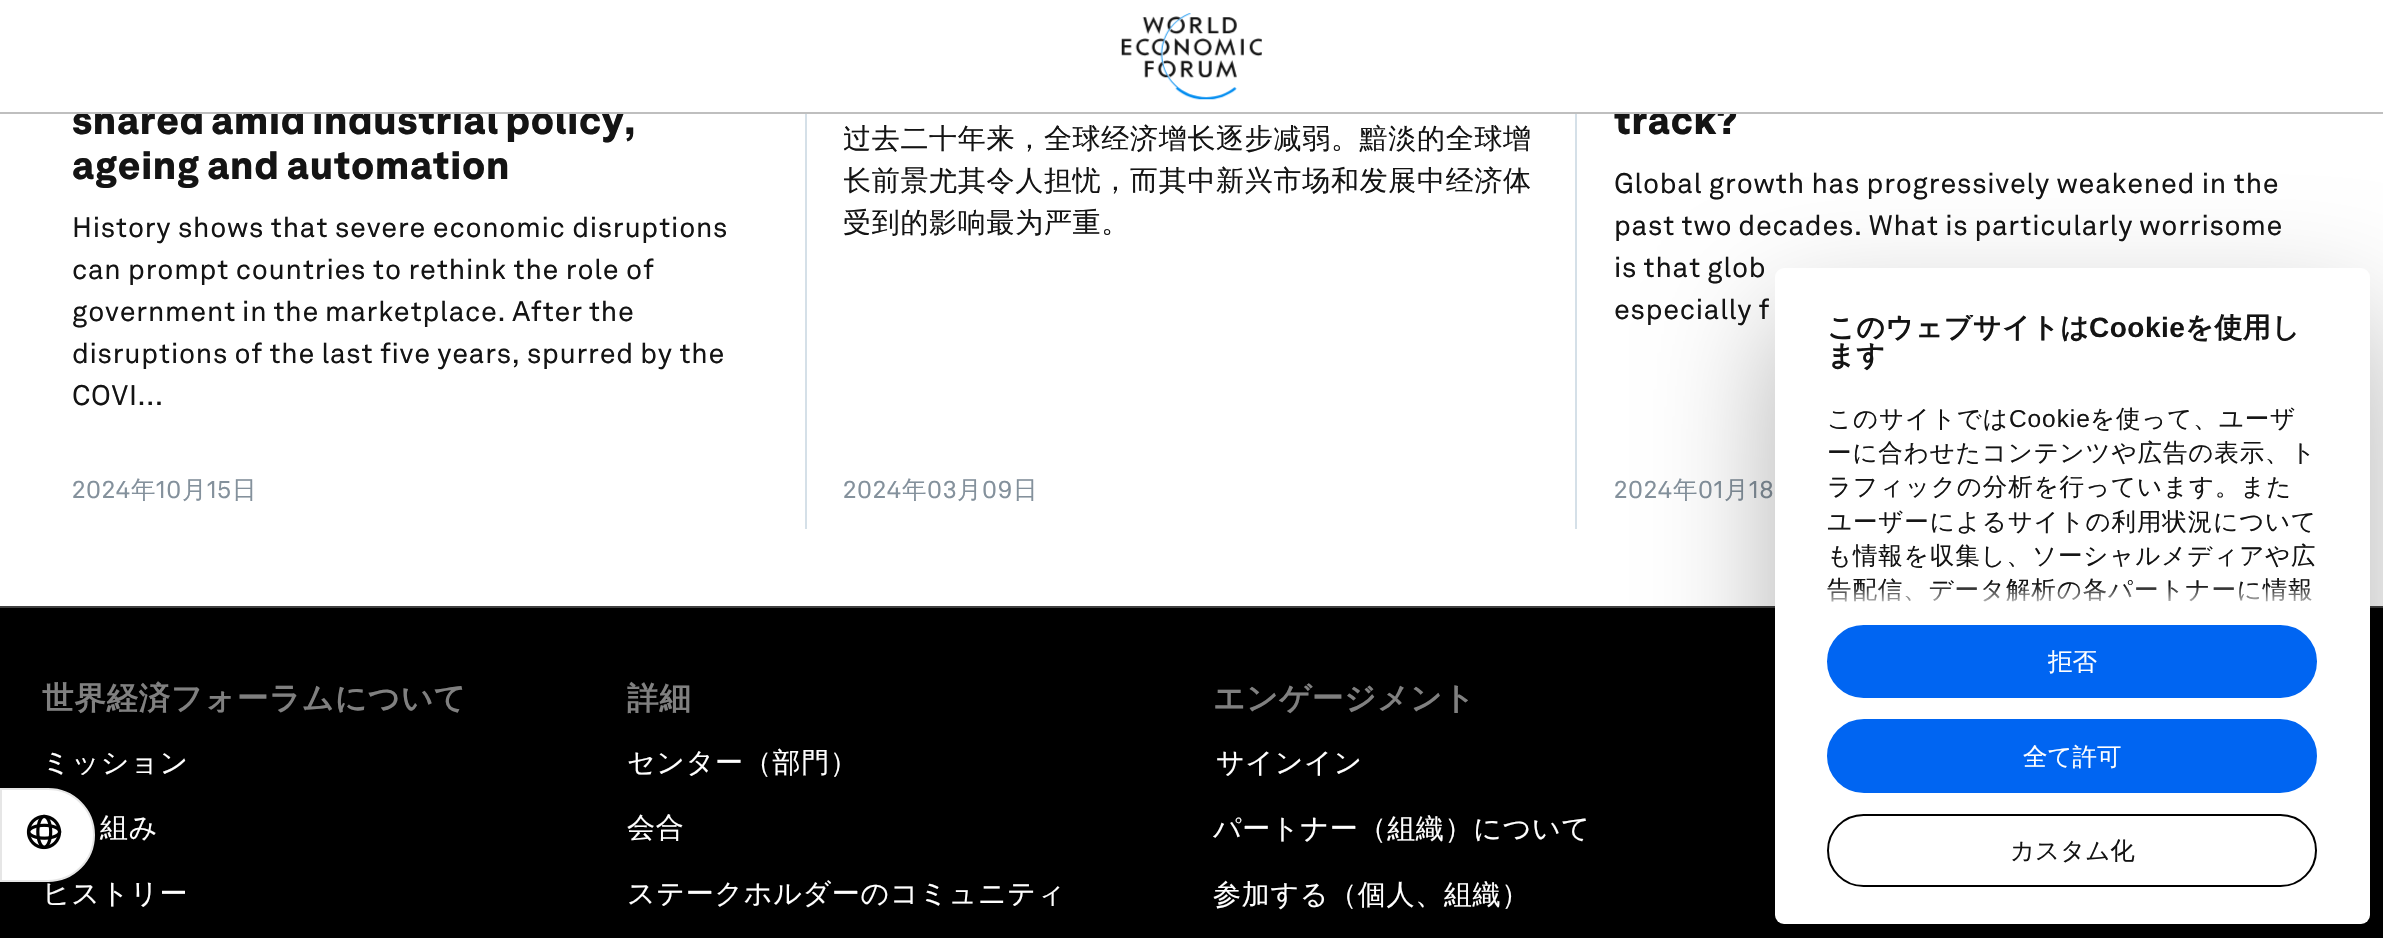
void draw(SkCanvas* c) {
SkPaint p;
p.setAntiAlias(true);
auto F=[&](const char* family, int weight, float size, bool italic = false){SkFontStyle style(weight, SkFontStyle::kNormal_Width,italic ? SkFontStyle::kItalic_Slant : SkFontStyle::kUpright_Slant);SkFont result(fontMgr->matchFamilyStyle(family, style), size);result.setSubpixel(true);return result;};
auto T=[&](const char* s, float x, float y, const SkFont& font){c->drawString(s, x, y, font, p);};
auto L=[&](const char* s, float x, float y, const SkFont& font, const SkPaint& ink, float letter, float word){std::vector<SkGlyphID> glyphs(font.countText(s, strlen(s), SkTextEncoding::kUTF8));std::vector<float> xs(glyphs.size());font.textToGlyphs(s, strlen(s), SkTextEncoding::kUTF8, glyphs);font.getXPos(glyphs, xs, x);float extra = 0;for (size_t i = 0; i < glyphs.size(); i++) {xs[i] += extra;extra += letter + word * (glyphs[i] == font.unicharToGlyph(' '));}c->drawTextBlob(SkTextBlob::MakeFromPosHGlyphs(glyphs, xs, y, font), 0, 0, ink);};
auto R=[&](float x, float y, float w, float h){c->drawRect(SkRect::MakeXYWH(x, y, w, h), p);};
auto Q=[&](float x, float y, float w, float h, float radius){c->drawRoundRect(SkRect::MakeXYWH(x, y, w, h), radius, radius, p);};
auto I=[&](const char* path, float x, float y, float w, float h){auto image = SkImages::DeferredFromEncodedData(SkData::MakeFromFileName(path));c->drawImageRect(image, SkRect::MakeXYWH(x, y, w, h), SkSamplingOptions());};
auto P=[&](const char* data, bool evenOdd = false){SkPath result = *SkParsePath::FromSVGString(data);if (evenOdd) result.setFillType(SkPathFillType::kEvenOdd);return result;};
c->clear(0xffffffff);
auto f1 = F("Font",900,38.5);
p.setColor(0xff141414);
L("shared amid industrial policy,",72,134,f1,p,.7,-2);
L("track?",1614,134,f1,p,.7,0);
p.setColor(0xffffffff);
R(95,106,1641,6);
p.setColor(0xffbfbfbf);
R(0,112,2383,2);
I("1.png",1121,13,141,87);
p.setColor(0xff141414);
L("ageing and automation",72,179,f1,p,.7,-1);
auto f2 = F("Font",400,28);
L("History shows that severe economic disruptions",72,237,f2,p,.7,-.5);
L("can prompt countries to rethink the role of",72,279,f2,p,.7,-.5);
L("government in the marketplace. After the",72,321,f2,p,.7,-1.25);
L("disruptions of the last five years, spurred by the",72,363,f2,p,.7,-.75);
L("COVI...",72,405,f2,p,.7,0);
auto f3 = F("Font",400,24.5);
p.setColor(0xff84919c);
L("2024",72,498,f3,p,.7,0);
auto f4 = F("WenQuanYi Zen Hei",500,24.5);
L("年",131,498,f4,p,.7,0);
L("10",156,498,f3,p,.7,0);
L("月",182,498,f4,p,.7,0);
L("15",207,498,f3,p,.7,0);
L("日",232,498,f4,p,.7,0);
p.setColor(0xffd5e0e8);
R(805,114,2,415);
c->save();
c->clipRect(SkRect::MakeXYWH(844,0,696,508));
auto f5 = F("WenQuanYi Zen Hei",500,28);
p.setColor(0xff141414);
L("过去二十年来，全球经济增长逐步减弱。黯淡的全球增",843,148,f5,p,.7,0);
L("长前景尤其令人担忧，而其中新兴市场和发展中经济体",843,190,f5,p,.7,0);
c->restore();
L("受到的影响最为严重。",843,232,f5,p,.7,0);
p.setColor(0xff84919c);
L("2024",843,498,f3,p,.7,0);
L("年",902,498,f4,p,.7,0);
L("03",927,498,f3,p,.7,0);
L("月",957,498,f4,p,.7,0);
L("09",982,498,f3,p,.7,0);
L("日",1013,498,f4,p,.7,0);
p.setColor(0xffd5e0e8);
R(1575,114,2,415);
p.setColor(0xff141414);
L("Global growth has progressively weakened in the",1614,193,f2,p,.7,-.5);
L("past two decades. What is particularly worrisome",1614,235,f2,p,.7,-1);
L("is that glob",1614,277,f2,p,.7,-1);
L("especially f",1614,319,f2,p,.7,-1);
p.setColor(0xff84919c);
L("2024",1614,498,f3,p,.7,0);
L("年",1673,498,f4,p,.7,0);
L("01",1698,498,f3,p,.7,0);
L("月",1724,498,f4,p,.7,0);
L("18",1749,498,f3,p,.7,0);
p.setColor(0xff000000);
R(0,608,2383,330);
p.setColor(0xff404040);
R(0,606,2383,2);
auto f6 = F("WenQuanYi Zen Hei",700,31.5);
p.setColor(0xff808080);
L("世界経済フォーラムについて",42,709,f6,p,.7,0);
p.setColor(0xffffffff);
L("ミッション",42,772,f5,p,.7,0);
L("組み",100,837,f5,p,.7,0);
L("ヒストリー",42,903,f5,p,.7,0);
p.setColor(0xff808080);
L("詳細",627,709,f6,p,.7,0);
p.setColor(0xffffffff);
L("センター（部門）",627,772,f5,p,.7,0);
L("会合",627,837,f5,p,.7,0);
L("ステークホルダーのコミュニティ",627,903,f5,p,.7,0);
p.setColor(0xff808080);
L("エンゲージメント",1213,709,f6,p,.7,0);
p.setColor(0xffffffff);
L("サインイン",1216,772,f5,p,.7,0);
L("パートナー（組織）について",1213,838,f5,p,.7,0);
L("参加する（個人、組織）",1213,904,f5,p,.7,0);
p.setColor(0x14000000);
p.setMaskFilter(SkMaskFilter::MakeBlur(kNormal_SkBlurStyle, 10.5));
c->drawRoundRect(SkRect::MakeXYWH(0,795,95,94),47,47,p);
p.setMaskFilter(nullptr);
p.setColor(0xffffffff);
c->drawPath(P("M1 789h47c25.5 0 46 20.5 46 46c0 25.5-20.5 46-46 46h-47z"),p);
p.setStroke(true);
p.setStrokeWidth(2);
p.setColor(0xffe6e6e6);
c->drawPath(P("M1 789h47c25.5 0 46 20.5 46 46c0 25.5-20.5 46-46 46h-47z"),p);
I("2.png",26,814,36,36);
p.setStroke(false);
p.setColor(0x4d000000);
p.setMaskFilter(SkMaskFilter::MakeBlur(kNormal_SkBlurStyle, 61));
c->drawRoundRect(SkRect::MakeXYWH(1775,320,595,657),9,9,p);
p.setMaskFilter(nullptr);
p.setColor(0xffffffff);
Q(1775,268,595,656,9);
c->save();
c->clipRect(SkRect::MakeXYWH(1827,315,490,310));
auto f7 = F("WenQuanYi Zen Hei",700,28);
p.setColor(0xff141414);
L("このウェブサイトは",1827,337,f7,p,.5,0);
c->restore();
auto f8 = F("Liberation Sans",700,28);
L("Cookie",2089,337,f8,p,.5,0);
L("を使用し",2185,337,f7,p,.5,0);
L("ます",1827,365,f7,p,.5,0);
L("このサイトでは",1827,427,f4,p,.9,0);
auto f9 = F("Liberation Sans",400,24.5);
L("Cookie",2009,427,f9,p,.9,0);
L("を使って、ユーザ",2090,427,f4,p,.9,0);
L("ーに合わせたコンテンツや広告の表示、ト",1827,461,f4,p,.9,0);
L("ラフィックの分析を行っています。また",1827,495,f4,p,.9,0);
L("ユーザーによるサイトの利用状況について",1827,530,f4,p,.9,0);
L("も情報を収集し、ソーシャルメディアや広",1827,564,f4,p,.9,0);
L("告配信、データ解析の各パートナーに情報",1827,598,f4,p,.9,0);
{
const SkColor colors[] = {0xffffffff,0xccffffff,0x00ffffff};
const float stops[] = {0,.5,1};
const SkPoint ends[] = {{2055,625}, {2055,585}};
p.setShader(SkGradientShader::MakeLinear(ends, colors, stops, 3, SkTileMode::kClamp));
p.setAlpha(255);
}
R(1827,586,485,16);
p.setShader(nullptr);
p.setColor(0xff0065f2);
c->drawRoundRect(SkRect::MakeXYWH(1828,626,488,71),35.5,35.5,p);
p.setStroke(true);
c->drawRoundRect(SkRect::MakeXYWH(1828,626,488,71),35.5,35.5,p);
p.setStroke(false);
p.setColor(0xffffffff);
T("拒否",2048,670,f4);
p.setColor(0xff0065f2);
c->drawRoundRect(SkRect::MakeXYWH(1828,720,488,72),36,36,p);
p.setStroke(true);
c->drawRoundRect(SkRect::MakeXYWH(1828,720,488,72),36,36,p);
p.setStroke(false);
p.setColor(0xffffffff);
T("全て許可",2023,765,f4);
p.setStroke(true);
p.setColor(0xff000000);
c->drawRoundRect(SkRect::MakeXYWH(1828,815,488,71),35.5,35.5,p);
p.setStroke(false);
p.setColor(0xff141414);
T("カスタム化",2010,859,f4);
}
